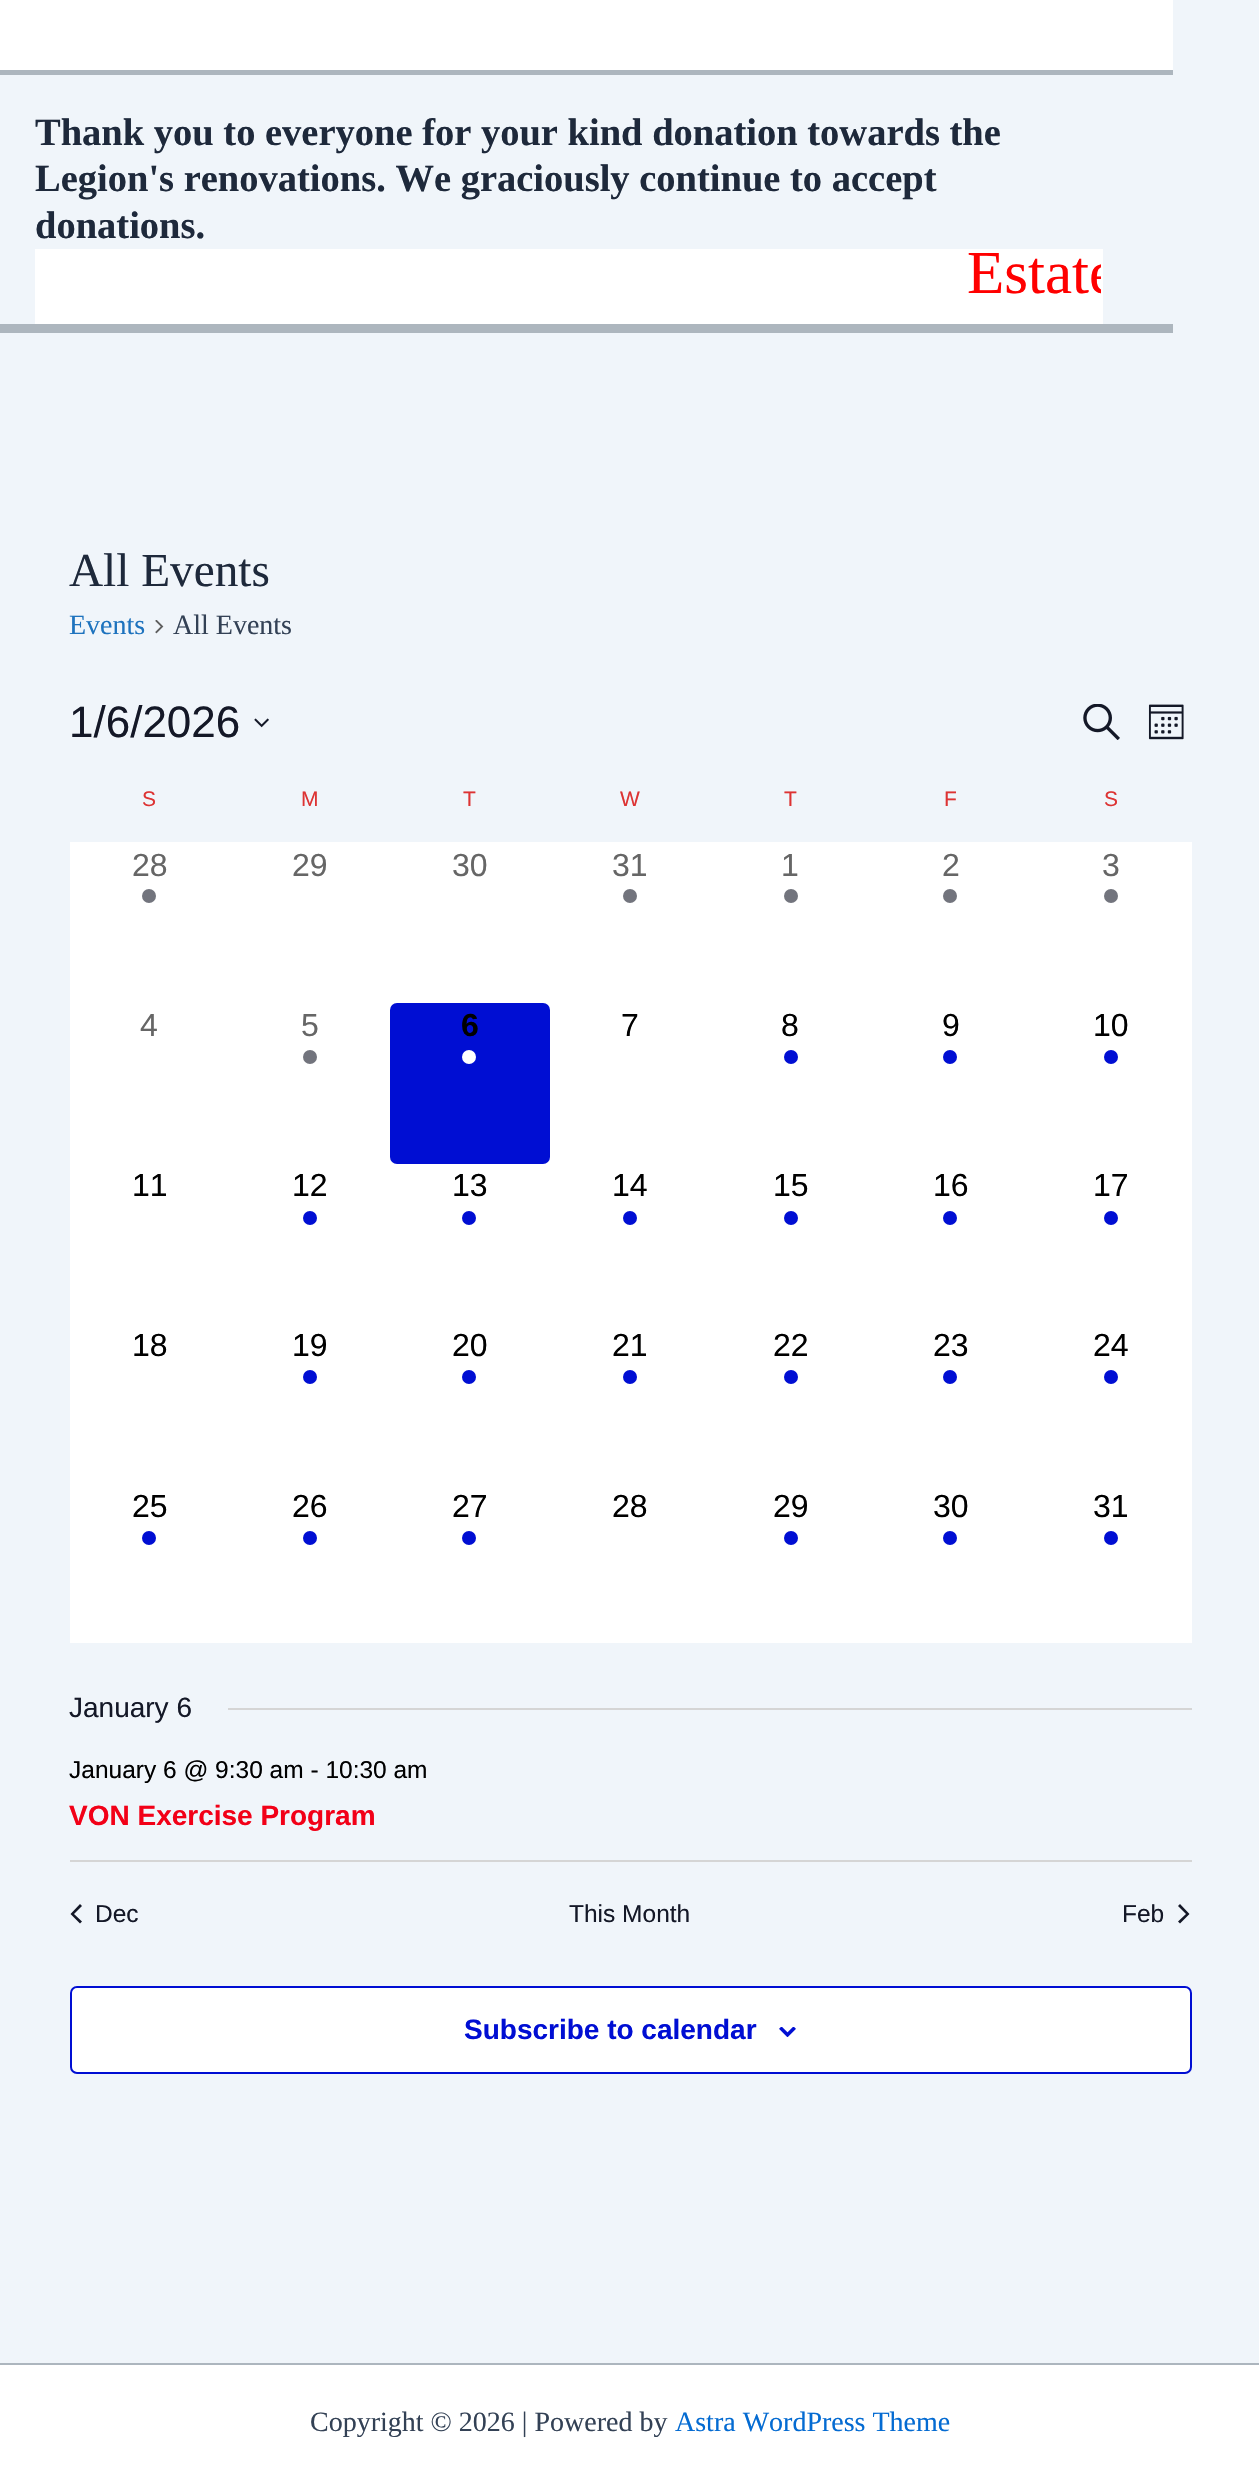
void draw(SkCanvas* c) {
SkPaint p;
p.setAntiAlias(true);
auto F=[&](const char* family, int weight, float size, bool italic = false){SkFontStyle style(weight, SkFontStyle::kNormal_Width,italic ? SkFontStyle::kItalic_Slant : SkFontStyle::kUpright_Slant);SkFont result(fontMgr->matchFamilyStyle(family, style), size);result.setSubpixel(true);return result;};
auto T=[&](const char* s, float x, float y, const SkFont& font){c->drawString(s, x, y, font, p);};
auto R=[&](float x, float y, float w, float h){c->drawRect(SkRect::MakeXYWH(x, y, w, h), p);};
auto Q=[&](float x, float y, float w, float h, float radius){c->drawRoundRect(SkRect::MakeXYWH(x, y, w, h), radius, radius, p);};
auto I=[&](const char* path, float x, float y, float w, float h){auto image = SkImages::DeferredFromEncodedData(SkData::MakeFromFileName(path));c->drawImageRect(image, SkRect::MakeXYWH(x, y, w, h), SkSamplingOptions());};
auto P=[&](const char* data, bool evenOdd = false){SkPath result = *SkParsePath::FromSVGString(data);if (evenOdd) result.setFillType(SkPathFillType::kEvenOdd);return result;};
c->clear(0xfff0f5fa);
p.setColor(0xffffffff);
R(0,0,1173,70);
p.setColor(0xffadb6be);
R(0,70,1173,5);
R(0,324,1173,9);
auto f1 = F("Liberation Serif",700,38.5);
p.setColor(0xff1e293b);
T("Thank you to everyone for your kind donation towards the",35,145,f1);
T("Legion's renovations. We graciously continue to accept",35,191,f1);
T("donations.",35,238,f1);
p.setColor(0xffffffff);
R(35,249,1068,75);
c->save();
c->clipRect(SkRect::MakeXYWH(37,250,1064,58));
auto f2 = F("Liberation Serif",400,61);
p.setColor(0xffff0000);
T("Estate",967,293,f2);
c->restore();
auto f3 = F("Liberation Serif",400,47.25);
p.setColor(0xff1e293b);
T("All Events",69,586,f3);
auto f4 = F("Liberation Serif",400,28);
p.setColor(0xff1e73be);
T("Events",69,634,f4);
I("1.png",155,620,9,14);
p.setColor(0xff334155);
T("All Events",173,634,f4);
auto f5 = F("Liberation Sans",400,44);
p.setColor(0xff141827);
T("1/6/2026",69,737,f5);
I("2.png",254,718,15,10);
I("3.png",1083,704,37,36);
I("4.png",1148,704,36,36);
auto f6 = F("Liberation Sans",400,21);
p.setColor(0xffdd3333);
T("S",142,806,f6);
T("M",301,806,f6);
T("T",463,806,f6);
T("W",620,806,f6);
T("T",784,806,f6);
T("F",944,806,f6);
T("S",1104,806,f6);
p.setColor(0xffffffff);
R(70,842,1122,801);
auto f7 = F("Liberation Sans",400,32);
p.setColor(0xff666666);
T("28",132,876,f7);
p.setColor(0xff72747d);
c->drawCircle(149,896,7,p);
p.setColor(0xff666666);
T("29",292,876,f7);
T("30",452,876,f7);
T("31",612,876,f7);
p.setColor(0xff72747d);
c->drawCircle(630,896,7,p);
p.setColor(0xff666666);
T("1",781,876,f7);
p.setColor(0xff72747d);
c->drawCircle(791,896,7,p);
p.setColor(0xff666666);
T("2",942,876,f7);
p.setColor(0xff72747d);
c->drawCircle(950,896,7,p);
p.setColor(0xff666666);
T("3",1102,876,f7);
p.setColor(0xff72747d);
c->drawCircle(1111,896,7,p);
p.setColor(0xff666666);
T("4",140,1036,f7);
T("5",301,1036,f7);
p.setColor(0xff72747d);
c->drawCircle(310,1057,7,p);
p.setColor(0xff000ed3);
Q(390,1003,160,161,7);
auto f8 = F("Liberation Sans",700,32);
p.setColor(0xff000000);
T("6",461,1036,f8);
p.setColor(0xffffffff);
c->drawCircle(469,1057,7,p);
p.setColor(0xff000000);
T("7",621,1036,f7);
T("8",781,1036,f7);
p.setColor(0xff000ed3);
c->drawCircle(791,1057,7,p);
p.setColor(0xff000000);
T("9",942,1036,f7);
p.setColor(0xff000ed3);
c->drawCircle(950,1057,7,p);
p.setColor(0xff000000);
T("10",1093,1036,f7);
p.setColor(0xff000ed3);
c->drawCircle(1111,1057,7,p);
p.setColor(0xff000000);
T("11",132,1196,f7);
T("12",292,1196,f7);
p.setColor(0xff000ed3);
c->drawCircle(310,1218,7,p);
p.setColor(0xff000000);
T("13",452,1196,f7);
p.setColor(0xff000ed3);
c->drawCircle(469,1218,7,p);
p.setColor(0xff000000);
T("14",612,1196,f7);
p.setColor(0xff000ed3);
c->drawCircle(630,1218,7,p);
p.setColor(0xff000000);
T("15",773,1196,f7);
p.setColor(0xff000ed3);
c->drawCircle(791,1218,7,p);
p.setColor(0xff000000);
T("16",933,1196,f7);
p.setColor(0xff000ed3);
c->drawCircle(950,1218,7,p);
p.setColor(0xff000000);
T("17",1093,1196,f7);
p.setColor(0xff000ed3);
c->drawCircle(1111,1218,7,p);
p.setColor(0xff000000);
T("18",132,1356,f7);
T("19",292,1356,f7);
p.setColor(0xff000ed3);
c->drawCircle(310,1377,7,p);
p.setColor(0xff000000);
T("20",452,1356,f7);
p.setColor(0xff000ed3);
c->drawCircle(469,1377,7,p);
p.setColor(0xff000000);
T("21",612,1356,f7);
p.setColor(0xff000ed3);
c->drawCircle(630,1377,7,p);
p.setColor(0xff000000);
T("22",773,1356,f7);
p.setColor(0xff000ed3);
c->drawCircle(791,1377,7,p);
p.setColor(0xff000000);
T("23",933,1356,f7);
p.setColor(0xff000ed3);
c->drawCircle(950,1377,7,p);
p.setColor(0xff000000);
T("24",1093,1356,f7);
p.setColor(0xff000ed3);
c->drawCircle(1111,1377,7,p);
p.setColor(0xff000000);
T("25",132,1517,f7);
p.setColor(0xff000ed3);
c->drawCircle(149,1538,7,p);
p.setColor(0xff000000);
T("26",292,1517,f7);
p.setColor(0xff000ed3);
c->drawCircle(310,1538,7,p);
p.setColor(0xff000000);
T("27",452,1517,f7);
p.setColor(0xff000ed3);
c->drawCircle(469,1538,7,p);
p.setColor(0xff000000);
T("28",612,1517,f7);
T("29",773,1517,f7);
p.setColor(0xff000ed3);
c->drawCircle(791,1538,7,p);
p.setColor(0xff000000);
T("30",933,1517,f7);
p.setColor(0xff000ed3);
c->drawCircle(950,1538,7,p);
p.setColor(0xff000000);
T("31",1093,1517,f7);
p.setColor(0xff000ed3);
c->drawCircle(1111,1538,7,p);
auto f9 = F("Liberation Sans",400,28);
p.setColor(0xff141827);
T("January 6",69,1717,f9);
p.setColor(0xffd5d5d5);
R(228,1708,964,2);
auto f10 = F("Liberation Sans",400,24.5);
p.setColor(0xff000000);
T("January 6 @ 9:30 am - 10:30 am",69,1778,f10);
auto f11 = F("Liberation Sans",700,28);
p.setColor(0xfff20017);
T("VON Exercise Program",69,1825,f11);
p.setColor(0xffd5d5d5);
R(70,1860,1122,2);
p.setColor(0xff141827);
c->drawPath(P("M82 1921.5l-2 2l-9.5-9.5l9.5-10l2 2l-8 8z"),p);
T("Dec",95,1922,f10);
T("This Month",569,1922,f10);
T("Feb",1122,1922,f10);
c->drawPath(P("M1178 1906l2-2l9.5 10l-9.5 9.5l-2-2l8-7.5z"),p);
p.setColor(0xffffffff);
c->drawRoundRect(SkRect::MakeXYWH(71,1987,1120,86),6,6,p);
p.setStroke(true);
p.setStrokeWidth(2);
p.setColor(0xff000ed3);
c->drawRoundRect(SkRect::MakeXYWH(71,1987,1120,86),6,6,p);
p.setStroke(false);
T("Subscribe to calendar",464,2039,f11);
I("5.png",779,2027,17,10);
p.setColor(0xffffffff);
R(0,2365,1259,124);
p.setColor(0xffadb6be);
R(0,2363,1259,2);
p.setColor(0xff334155);
T("Copyright © 2026 | Powered by",310,2431,f4);
p.setColor(0xff046bd2);
T("Astra WordPress Theme",675,2431,f4);
}
